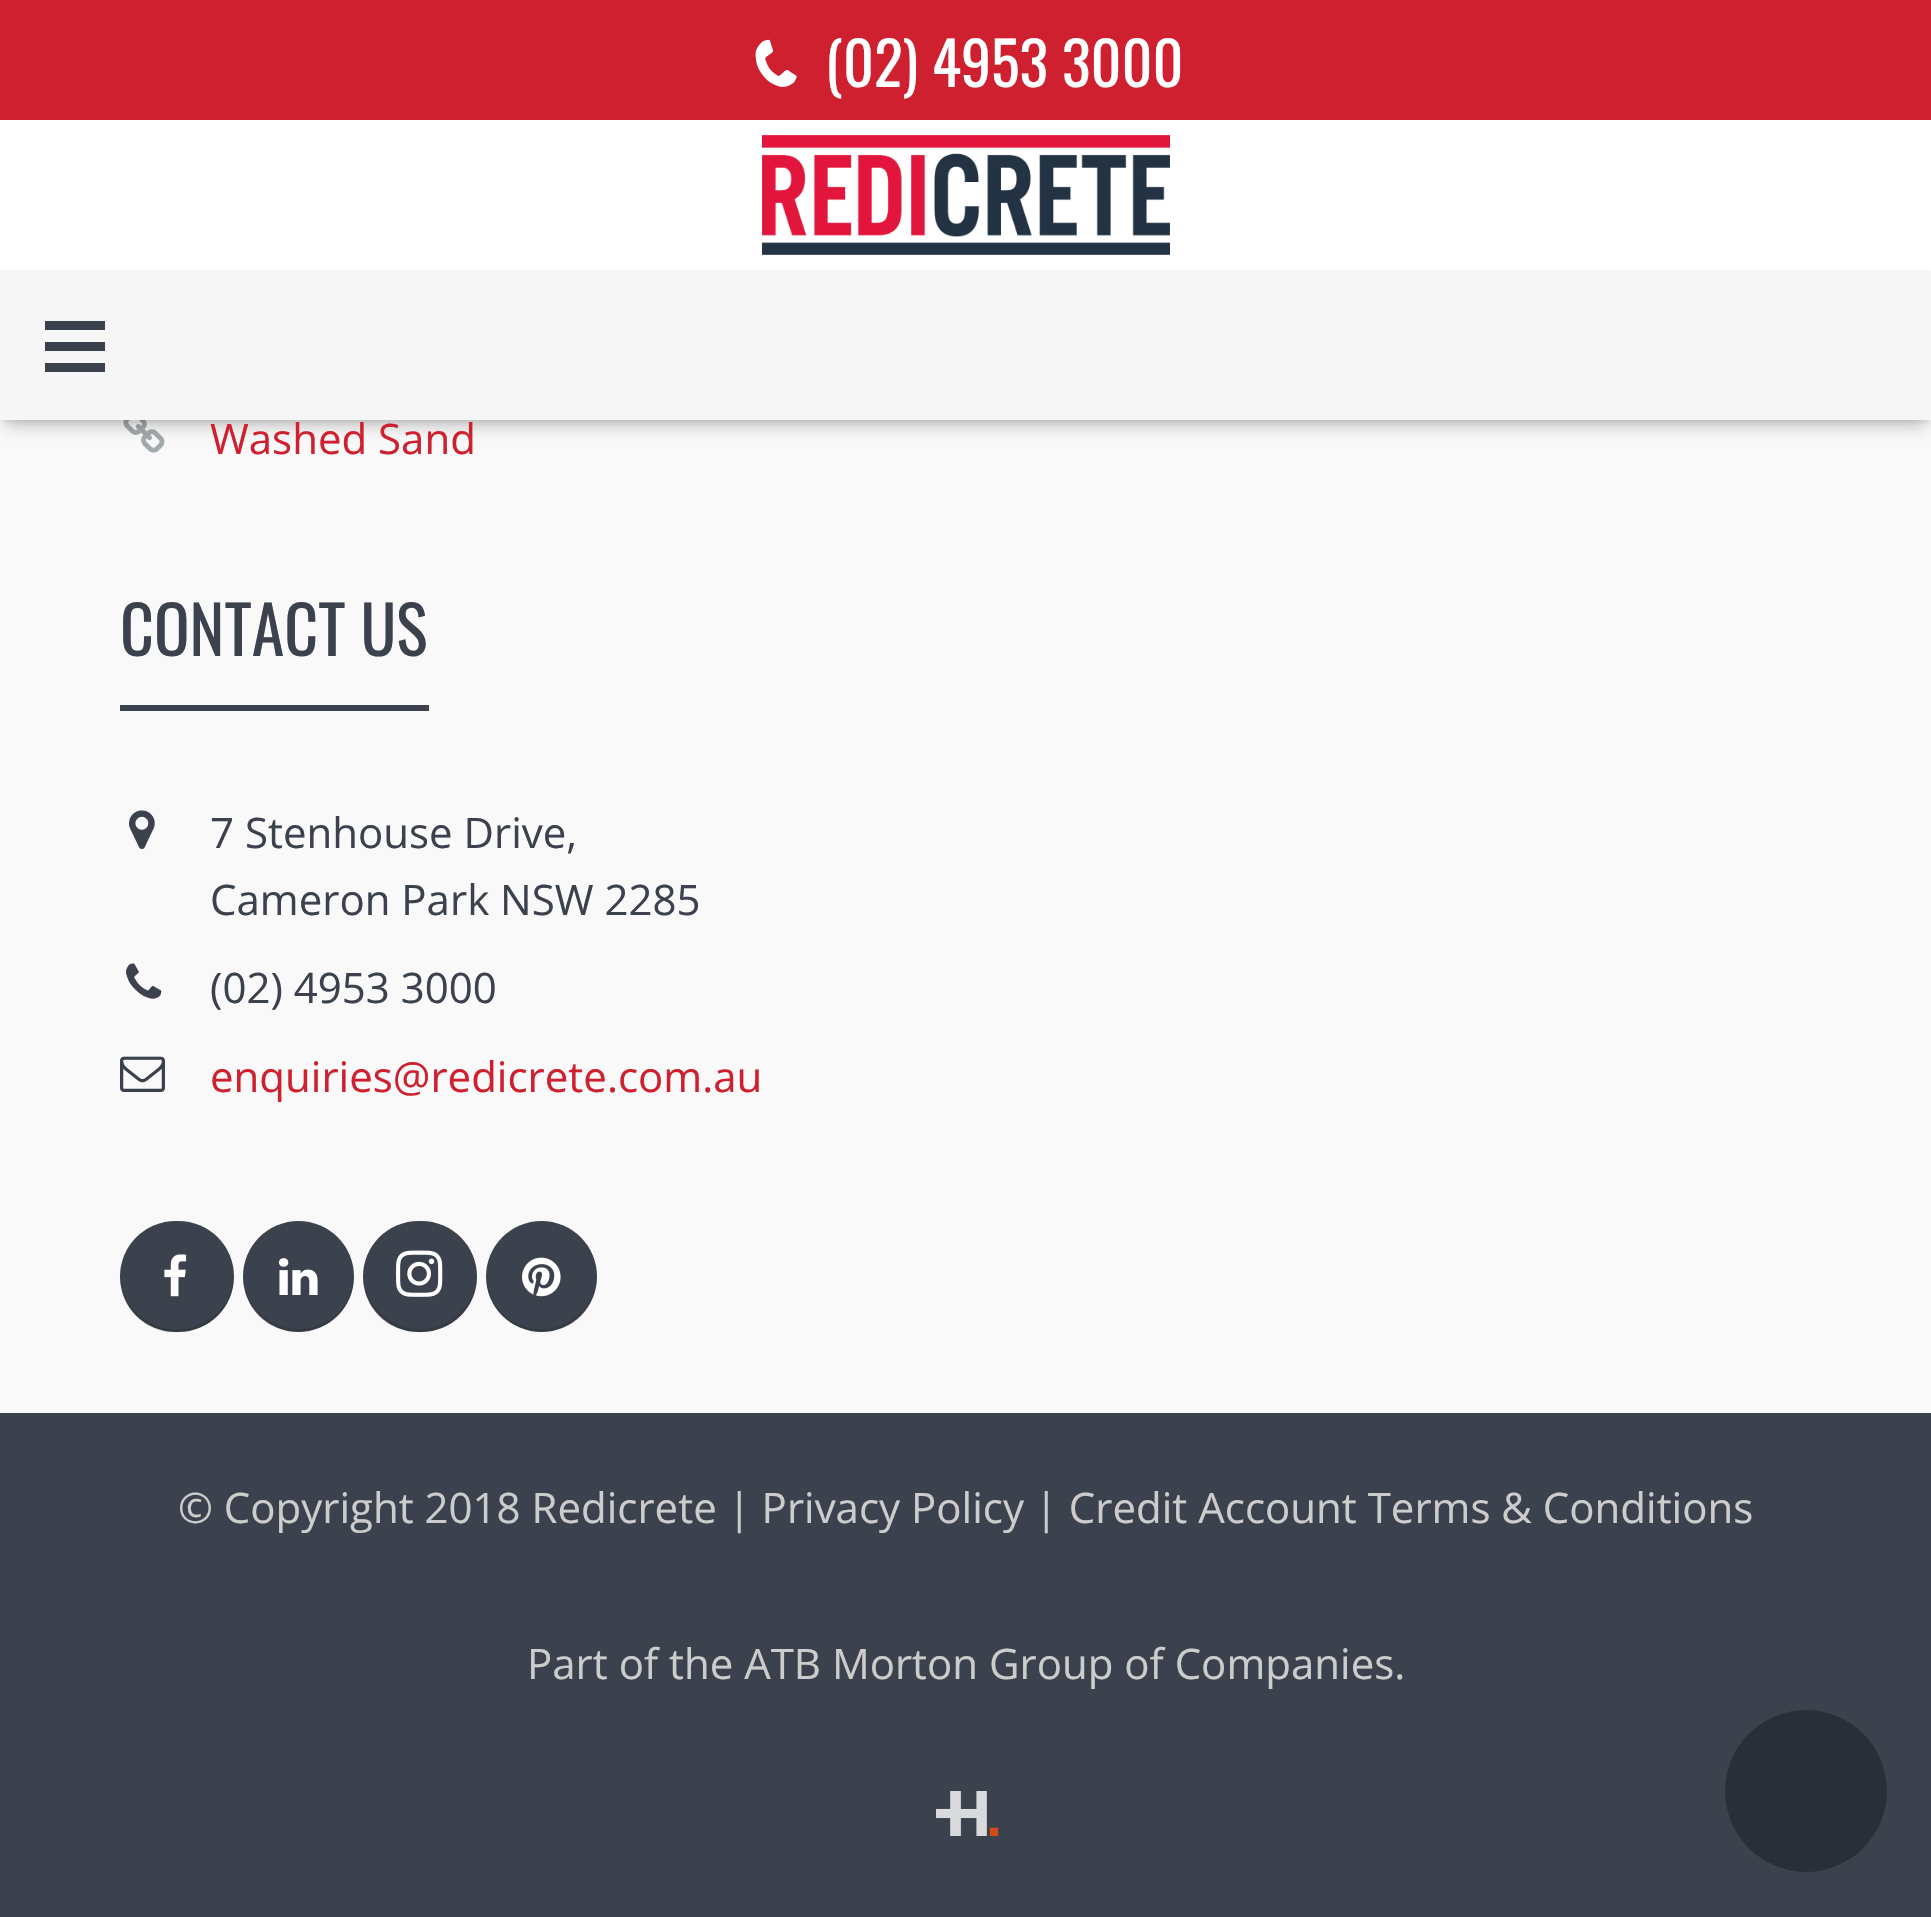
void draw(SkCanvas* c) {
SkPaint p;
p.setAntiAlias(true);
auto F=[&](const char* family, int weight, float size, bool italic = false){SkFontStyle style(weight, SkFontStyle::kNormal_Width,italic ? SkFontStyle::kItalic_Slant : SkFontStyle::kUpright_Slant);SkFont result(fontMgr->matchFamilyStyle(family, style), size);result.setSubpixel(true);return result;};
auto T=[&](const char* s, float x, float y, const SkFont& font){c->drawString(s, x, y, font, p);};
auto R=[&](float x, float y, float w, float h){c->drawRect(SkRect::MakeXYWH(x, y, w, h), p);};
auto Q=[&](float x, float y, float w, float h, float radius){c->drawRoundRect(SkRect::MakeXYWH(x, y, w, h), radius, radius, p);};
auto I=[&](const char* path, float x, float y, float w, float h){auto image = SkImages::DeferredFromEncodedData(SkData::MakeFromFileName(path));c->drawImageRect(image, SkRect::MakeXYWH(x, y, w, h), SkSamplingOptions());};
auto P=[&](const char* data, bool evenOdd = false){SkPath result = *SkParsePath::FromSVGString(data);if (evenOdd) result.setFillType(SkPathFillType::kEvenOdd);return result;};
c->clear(0xfff9f9f9);
p.setColor(0xffcf2030);
R(0,0,1931,120);
I("1.png",755,39,42,48);
auto f1 = F("Oswald",400,60);
p.setColor(0xffffffff);
T("(02) 4953 3000",825,87,f1);
R(0,120,1931,150);
I("2.png",762,135,408,120);
I("3.png",123,420,42,33);
p.setColor(0x0d000000);
p.setMaskFilter(SkMaskFilter::MakeBlur(kNormal_SkBlurStyle, 1.5));
c->drawRect(SkRect::MakeXYWH(3,279,1926,144),p);
p.setMaskFilter(nullptr);
p.setColor(0x38000000);
p.setMaskFilter(SkMaskFilter::MakeBlur(kNormal_SkBlurStyle, 7.5));
c->drawRect(SkRect::MakeXYWH(6,288,1920,138),p);
p.setMaskFilter(nullptr);
p.setColor(0xfff6f6f6);
R(0,270,1931,150);
p.setColor(0xff3c424d);
R(45,342,60,9);
R(45,321,60,9);
R(45,363,60,9);
auto f2 = F("Open Sans",400,42);
p.setColor(0xffcf2030);
T("Washed Sand",210,454,f2);
p.setColor(0xff3c424d);
R(120,705,309,6);
auto f3 = F("Oswald",400,66);
T("CONTACT US",120,656,f3);
I("4.png",129,810,26,39);
T("7 Stenhouse Drive,",210,848,f2);
T("Cameron Park NSW 2285",210,915,f2);
I("5.png",126,963,36,36);
T("(02) 4953 3000",210,1003,f2);
I("6.png",120,1056,45,36);
p.setColor(0xffcf2030);
T("enquiries@redicrete.com.au",210,1092,f2);
p.setColor(0xff3c424d);
Q(120,1221,114,111,55.5);
p.setColor(0x1f000000);
c->drawPath(P("M120 1275c0 12 3 23 9 33c31 45 106 24 105-33c-1 30-26 54-57 54c-31 0-56-24-57-54z"),p);
I("7.png",164,1254,23,43);
p.setColor(0xff3c424d);
c->drawCircle(298.5,1276.5,55.5,p);
p.setColor(0x1f000000);
c->drawPath(P("M243 1275c0 12 3 23 9 33c31 45 103 22 102-33c-1 30-25 54-56 54c-30 0-54-24-55-54z"),p);
I("8.png",279,1258,39,37);
p.setColor(0xff3c424d);
Q(363,1221,114,111,55.5);
p.setColor(0x1f000000);
c->drawPath(P("M363 1275c0 12 3 23 9 33c31 45 106 24 105-33c-1 30-26 54-57 54c-31 0-56-24-57-54z"),p);
I("9.png",396,1250,47,47);
p.setColor(0xff3c424d);
c->drawCircle(541.5,1276.5,55.5,p);
p.setColor(0x1f000000);
c->drawPath(P("M597 1275c-1 30-25 54-55 54c-31 0-55-24-56-54c-1 55 71 78 102 33c6-10 9-21 9-33z"),p);
I("10.png",522,1257,39,40);
p.setColor(0xff3c424d);
R(0,1413,1931,504);
p.setColor(0xffcccccc);
T("© Copyright 2018 Redicrete | Privacy Policy | Credit Account Terms & Conditions",178,1523,f2);
T("Part of the ATB Morton Group of Companies.",527,1679,f2);
I("11.png",936,1791,63,45);
p.setColor(0xff2a2e36);
c->drawCircle(1806,1791,81,p);
}
